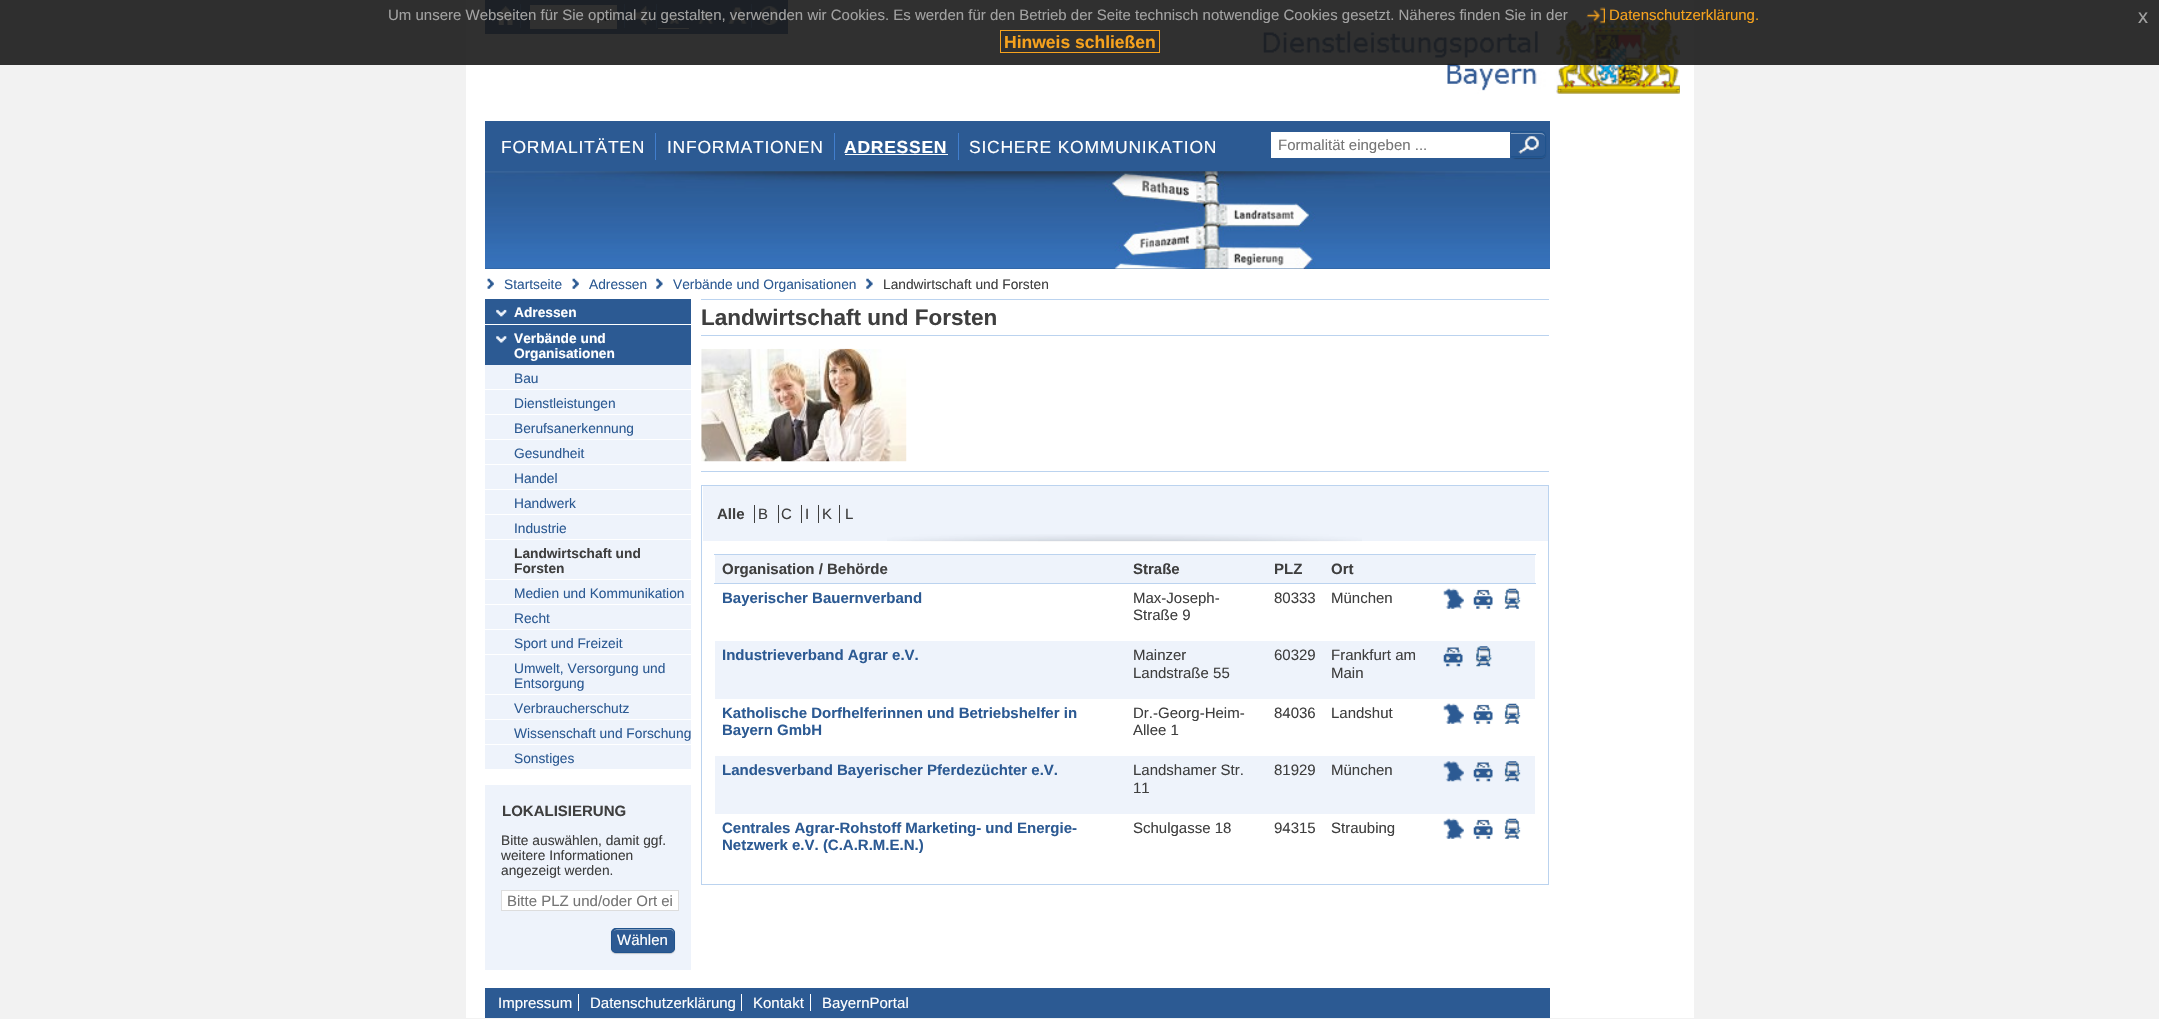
void draw(SkCanvas* c) {
SkPaint p;
p.setAntiAlias(true);
auto F=[&](const char* family, int weight, float size, bool italic = false){SkFontStyle style(weight, SkFontStyle::kNormal_Width,italic ? SkFontStyle::kItalic_Slant : SkFontStyle::kUpright_Slant);SkFont result(fontMgr->matchFamilyStyle(family, style), size);result.setSubpixel(true);return result;};
auto T=[&](const char* s, float x, float y, const SkFont& font){c->drawString(s, x, y, font, p);};
auto L=[&](const char* s, float x, float y, const SkFont& font, const SkPaint& ink, float letter, float word){std::vector<SkGlyphID> glyphs(font.countText(s, strlen(s), SkTextEncoding::kUTF8));std::vector<float> xs(glyphs.size());font.textToGlyphs(s, strlen(s), SkTextEncoding::kUTF8, glyphs);font.getXPos(glyphs, xs, x);float extra = 0;for (size_t i = 0; i < glyphs.size(); i++) {xs[i] += extra;extra += letter + word * (glyphs[i] == font.unicharToGlyph(' '));}c->drawTextBlob(SkTextBlob::MakeFromPosHGlyphs(glyphs, xs, y, font), 0, 0, ink);};
auto R=[&](float x, float y, float w, float h){c->drawRect(SkRect::MakeXYWH(x, y, w, h), p);};
auto Q=[&](float x, float y, float w, float h, float radius){c->drawRoundRect(SkRect::MakeXYWH(x, y, w, h), radius, radius, p);};
auto I=[&](const char* path, float x, float y, float w, float h){auto image = SkImages::DeferredFromEncodedData(SkData::MakeFromFileName(path));c->drawImageRect(image, SkRect::MakeXYWH(x, y, w, h), SkSamplingOptions());};
auto P=[&](const char* data, bool evenOdd = false){SkPath result = *SkParsePath::FromSVGString(data);if (evenOdd) result.setFillType(SkPathFillType::kEvenOdd);return result;};
c->clear(0xfff2f2f2);
p.setColor(0xffffffff);
R(466,0,1228,1018);
p.setColor(0xff2c5a93);
R(485,0,303,34);
p.setColor(0xff417ecd);
R(520,4,1,24);
I("2.png",496,6,19,19);
R(624,4,1,24);
p.setColor(0xffffffff);
R(530,5,87,24);
p.setStroke(true);
p.setStrokeWidth(2.5);
p.setColor(0xff000000);
c->drawPath(P("M600.5 14.5l5 5l5-5"),p);
p.setStroke(false);
p.setColor(0xff417ecd);
R(656,4,1,24);
I("3.png",632,6,20,19);
p.setColor(0xffffffff);
R(658,28,31,1);
I("4.png",669,14,10,10);
I("5.png",698,11,15,13);
p.setColor(0xff417ecd);
R(751,4,1,24);
I("6.png",728,7,19,17);
I("7.png",760,6,19,19);
I("8.png",1263,18,417,76);
p.setColor(0xe6191919);
R(0,0,2159,65);
auto f1 = F("Liberation Sans",400,15);
p.setColor(0xffa2a2a2);
T("Um unsere Webseiten für Sie optimal zu gestalten, verwenden wir Cookies. Es werden für den Betrieb der Seite technisch notwendige Cookies gesetzt. Näheres finden Sie in der",388,20,f1);
I("1.png",1586,7,19,17);
p.setColor(0xfff6a21d);
T("Datenschutzerklärung.",1609,20,f1);
auto f2 = F("Liberation Sans",400,20);
p.setColor(0xffa2a2a2);
T("x",2138,23,f2);
p.setStroke(true);
p.setStrokeWidth(1);
p.setColor(0xfff6a21d);
c->drawRect(SkRect::MakeXYWH(1000.5,30.5,159,22),p);
auto f3 = F("Liberation Sans",700,17.5);
p.setStroke(false);
T("Hinweis schließen",1004,48,f3);
p.setColor(0xff2c5a93);
R(485,121,1065,148);
p.setColor(0xff417ecd);
R(655,133,1,27);
auto f4 = F("Liberation Sans",400,17.5);
p.setColor(0xffffffff);
L("FORMALITÄTEN",501,153,f4,p,.75,0);
p.setColor(0xff417ecd);
R(834,133,1,27);
p.setColor(0xffffffff);
L("INFORMATIONEN",667,153,f4,p,.75,0);
p.setColor(0xff417ecd);
R(958,133,1,27);
p.setColor(0xffffffff);
L("ADRESSEN",844,153,f3,p,.75,0);
R(845,154,103,1);
L("SICHERE KOMMUNIKATION",969,153,f4,p,.75,0);
R(1271,132,239,26);
p.setColor(0xff757575);
T("Formalität eingeben ...",1278,150,f1);
p.setColor(0x33000000);
p.setMaskFilter(SkMaskFilter::MakeBlur(kNormal_SkBlurStyle, .5));
c->drawRoundRect(SkRect::MakeXYWH(1511,133,35,26),5,5,p);
p.setMaskFilter(nullptr);
p.setColor(0xff2c5a93);
c->drawPath(P("M1511 131h30c3 0 5 2 5 5v17c0 3-2 5-5 5h-30z"),p);
p.setColor(0xff809cbe);
c->drawPath(P("M1511 134h25c6.5 0 8.5 .5 9 3c0-2-2-4-4-4h-30z"),p);
p.setColor(0xff20538d);
c->drawPath(P("M1511 131h30c3 0 5 2.5 5 5v16.5c0 3-2 5-5 5h-30zm0 1.5h30c2.5 0 4 1.5 4 3.5v16.5c0 2-1.5 3.5-4 3.5h-30z",true),p);
I("9.png",1518,136,21,18);
I("10.png",485,171,1065,98);
I("11.png",487,278,7,11);
auto f5 = F("Liberation Sans",400,13.75);
p.setColor(0xff2c5a93);
T("Startseite",504,289,f5);
I("11.png",572,278,7,11);
T("Adressen",589,289,f5);
I("12.png",656,278,7,11);
T("Verbände und Organisationen",673,289,f5);
I("13.png",866,278,7,11);
p.setColor(0xff3f3f3f);
T("Landwirtschaft und Forsten",883,289,f5);
p.setColor(0xff2c5a93);
R(485,299,206,25);
I("14.png",496,309,11,8);
auto f6 = F("Liberation Sans",700,13.75);
p.setColor(0xffffffff);
T("Adressen",514,317,f6);
p.setColor(0xff2c5a93);
R(485,325,206,40);
I("15.png",496,336,11,7);
p.setColor(0xffffffff);
T("Verbände und",514,343,f6);
T("Organisationen",514,358,f6);
p.setColor(0xffeef3fb);
R(485,365,206,24);
p.setColor(0xff2c5a93);
T("Bau",514,383,f5);
p.setColor(0xffeef3fb);
R(485,390,206,24);
p.setColor(0xff2c5a93);
T("Dienstleistungen",514,408,f5);
p.setColor(0xffeef3fb);
R(485,415,206,24);
p.setColor(0xff2c5a93);
T("Berufsanerkennung",514,433,f5);
p.setColor(0xffeef3fb);
R(485,440,206,24);
p.setColor(0xff2c5a93);
T("Gesundheit",514,458,f5);
p.setColor(0xffeef3fb);
R(485,465,206,24);
p.setColor(0xff2c5a93);
T("Handel",514,483,f5);
p.setColor(0xffeef3fb);
R(485,490,206,24);
p.setColor(0xff2c5a93);
T("Handwerk",514,508,f5);
p.setColor(0xffeef3fb);
R(485,515,206,24);
p.setColor(0xff2c5a93);
T("Industrie",514,533,f5);
p.setColor(0xffeef3fb);
R(485,540,206,39);
p.setColor(0xff3f3f3f);
T("Landwirtschaft und",514,558,f6);
T("Forsten",514,573,f6);
p.setColor(0xffeef3fb);
R(485,580,206,24);
p.setColor(0xff2c5a93);
T("Medien und Kommunikation",514,598,f5);
p.setColor(0xffeef3fb);
R(485,605,206,24);
p.setColor(0xff2c5a93);
T("Recht",514,623,f5);
p.setColor(0xffeef3fb);
R(485,630,206,24);
p.setColor(0xff2c5a93);
T("Sport und Freizeit",514,648,f5);
p.setColor(0xffeef3fb);
R(485,655,206,39);
p.setColor(0xff2c5a93);
T("Umwelt, Versorgung und",514,673,f5);
T("Entsorgung",514,688,f5);
p.setColor(0xffeef3fb);
R(485,695,206,24);
p.setColor(0xff2c5a93);
T("Verbraucherschutz",514,713,f5);
p.setColor(0xffeef3fb);
R(485,720,206,24);
p.setColor(0xff2c5a93);
T("Wissenschaft und Forschung",514,738,f5);
p.setColor(0xffeef3fb);
R(485,745,206,24);
p.setColor(0xff2c5a93);
T("Sonstiges",514,763,f5);
p.setColor(0xffeef3fb);
R(485,785,206,185);
auto f7 = F("Liberation Sans",700,15);
p.setColor(0xff3f3f3f);
T("LOKALISIERUNG",502,816,f7);
T("Bitte auswählen, damit ggf.",501,845,f5);
T("weitere Informationen",501,860,f5);
T("angezeigt werden.",501,875,f5);
p.setColor(0xffffffff);
c->drawRect(SkRect::MakeXYWH(501.5,890.5,177,20),p);
p.setStroke(true);
p.setColor(0xffdddddd);
c->drawRect(SkRect::MakeXYWH(501.5,890.5,177,20),p);
p.setStroke(false);
p.setColor(0xff757575);
T("Bitte PLZ und/oder Ort ei",507,906,f1);
p.setColor(0x33000000);
p.setMaskFilter(SkMaskFilter::MakeBlur(kNormal_SkBlurStyle, .5));
c->drawRoundRect(SkRect::MakeXYWH(611,929,64,25),5,5,p);
p.setMaskFilter(nullptr);
p.setColor(0xff2c5a93);
Q(611,928,64,25,5);
p.setColor(0xff809cbe);
c->drawPath(P("M616 930h55c2 1 3 2 3 4v-1c0-2-2-4-4-4h-53c-1 0-3 1-3 2z"),p);
p.setStroke(true);
p.setColor(0xff20538d);
c->drawRoundRect(SkRect::MakeXYWH(611.5,928.5,63,24),4.5,4.5,p);
p.setStroke(false);
p.setColor(0xffffffff);
T("Wählen",617,945,f1);
p.setColor(0xffbbd3ef);
R(701,299,848,1);
R(701,335,848,1);
auto f8 = F("Liberation Sans",700,22.5);
p.setColor(0xff3f3f3f);
T("Landwirtschaft und Forsten",701,325,f8);
p.setColor(0xffbbd3ef);
R(701,471,848,1);
I("16.png",701,348,206,114);
p.setStroke(true);
c->drawRect(SkRect::MakeXYWH(701.5,485.5,847,399),p);
p.setStroke(false);
p.setColor(0xffeef3fb);
R(703,486,845,55);
I("17.png",887,534,475,8);
p.setColor(0xff3f3f3f);
T("Alle",717,519,f7);
T("B",758,519,f1);
R(754,505,1,18);
T("C",781,519,f1);
R(778,505,1,18);
T("I",805,519,f1);
R(801,505,1,18);
T("K",822,519,f1);
R(818,505,1,18);
T("L",845,519,f1);
R(839,505,1,18);
p.setColor(0xffbbd3ef);
R(714,554,822,1);
R(714,583,822,1);
p.setColor(0xffeef3fb);
R(715,555,820,28);
p.setColor(0xff3f3f3f);
T("Organisation / Behörde",722,574,f7);
T("Straße",1133,574,f7);
T("PLZ",1274,574,f7);
T("Ort",1331,574,f7);
p.setColor(0xff2c5a93);
T("Bayerischer Bauernverband",722,603,f7);
p.setColor(0xff3f3f3f);
T("Max-Joseph-",1133,603,f1);
T("Straße 9",1133,620,f1);
T("80333",1274,603,f1);
T("München",1331,603,f1);
I("18.png",1443,588,21,21);
I("19.png",1473,589,20,20);
I("20.png",1504,588,17,21);
p.setColor(0xffeef3fb);
R(715,641,820,58);
p.setColor(0xff2c5a93);
T("Industrieverband Agrar e.V.",722,660,f7);
p.setColor(0xff3f3f3f);
T("Mainzer",1133,660,f1);
T("Landstraße 55",1133,678,f1);
T("60329",1274,660,f1);
T("Frankfurt am",1331,660,f1);
T("Main",1331,678,f1);
I("21.png",1443,647,20,20);
I("22.png",1475,646,17,21);
p.setColor(0xff2c5a93);
T("Katholische Dorfhelferinnen und Betriebshelfer in",722,718,f7);
T("Bayern GmbH",722,735,f7);
p.setColor(0xff3f3f3f);
T("Dr.-Georg-Heim-",1133,718,f1);
T("Allee 1",1133,735,f1);
T("84036",1274,718,f1);
T("Landshut",1331,718,f1);
I("18.png",1443,703,21,21);
I("19.png",1473,704,20,20);
I("20.png",1504,703,17,21);
p.setColor(0xffeef3fb);
R(715,756,820,58);
p.setColor(0xff2c5a93);
T("Landesverband Bayerischer Pferdezüchter e.V.",722,775,f7);
p.setColor(0xff3f3f3f);
T("Landshamer Str.",1133,775,f1);
T("11",1133,793,f1);
T("81929",1274,775,f1);
T("München",1331,775,f1);
I("23.png",1443,761,21,21);
I("21.png",1473,762,20,20);
I("24.png",1503,761,18,21);
p.setColor(0xff2c5a93);
T("Centrales Agrar-Rohstoff Marketing- und Energie-",722,833,f7);
T("Netzwerk e.V. (C.A.R.M.E.N.)",722,850,f7);
p.setColor(0xff3f3f3f);
T("Schulgasse 18",1133,833,f1);
T("94315",1274,833,f1);
T("Straubing",1331,833,f1);
I("18.png",1443,818,21,21);
I("19.png",1473,819,20,20);
I("20.png",1504,818,17,21);
p.setColor(0xff2c5a93);
R(485,988,1065,30);
p.setColor(0xffffffff);
T("Impressum",498,1008,f1);
R(578,994,1,17);
T("Datenschutzerklärung",590,1008,f1);
R(741,994,1,17);
T("Kontakt",753,1008,f1);
R(810,994,1,17);
T("BayernPortal",822,1008,f1);
}
